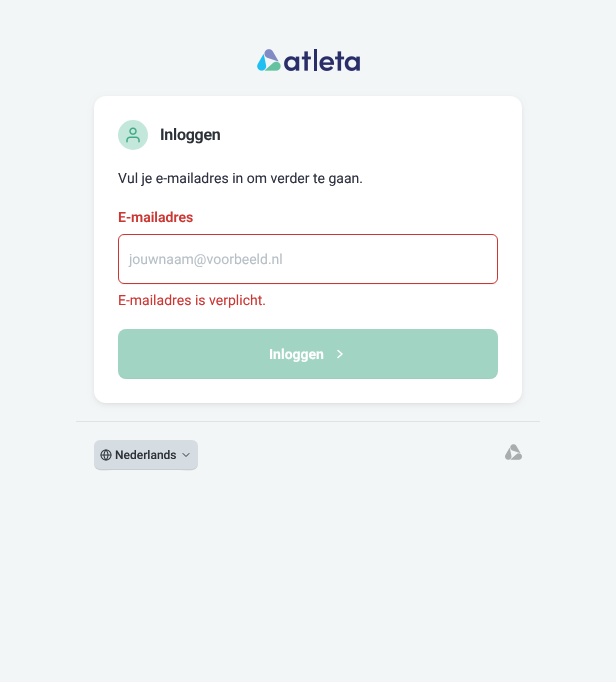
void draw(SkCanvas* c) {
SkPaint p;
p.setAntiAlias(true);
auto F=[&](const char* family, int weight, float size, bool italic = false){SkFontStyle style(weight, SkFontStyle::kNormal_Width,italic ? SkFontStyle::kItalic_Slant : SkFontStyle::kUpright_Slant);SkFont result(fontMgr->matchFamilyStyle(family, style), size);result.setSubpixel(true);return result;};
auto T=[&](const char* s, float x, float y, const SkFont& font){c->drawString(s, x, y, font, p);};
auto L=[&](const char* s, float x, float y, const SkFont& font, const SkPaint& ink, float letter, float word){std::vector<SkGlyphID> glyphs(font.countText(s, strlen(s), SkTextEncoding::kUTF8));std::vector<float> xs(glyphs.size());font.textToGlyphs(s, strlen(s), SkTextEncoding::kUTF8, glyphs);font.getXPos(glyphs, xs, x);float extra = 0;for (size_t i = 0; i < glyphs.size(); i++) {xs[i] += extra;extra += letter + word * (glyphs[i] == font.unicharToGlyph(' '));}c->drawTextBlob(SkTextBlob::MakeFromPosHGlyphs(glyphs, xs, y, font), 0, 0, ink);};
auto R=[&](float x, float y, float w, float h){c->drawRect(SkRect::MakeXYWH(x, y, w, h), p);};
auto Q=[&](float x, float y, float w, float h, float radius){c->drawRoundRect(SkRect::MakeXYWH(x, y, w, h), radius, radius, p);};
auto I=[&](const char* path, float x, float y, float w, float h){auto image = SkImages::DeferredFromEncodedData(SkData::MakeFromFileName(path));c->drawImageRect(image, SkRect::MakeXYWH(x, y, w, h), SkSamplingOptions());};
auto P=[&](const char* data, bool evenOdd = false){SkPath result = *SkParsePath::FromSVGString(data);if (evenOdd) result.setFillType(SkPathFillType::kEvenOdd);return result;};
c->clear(0xfff3f6f7);
I("1.png",257,49,103,22);
p.setColor(0x12000000);
p.setMaskFilter(SkMaskFilter::MakeBlur(kNormal_SkBlurStyle, 2));
c->drawRoundRect(SkRect::MakeXYWH(96,100,424,303),10,10,p);
p.setMaskFilter(nullptr);
p.setMaskFilter(SkMaskFilter::MakeBlur(kNormal_SkBlurStyle, 3));
c->drawRoundRect(SkRect::MakeXYWH(95,99,426,305),11,11,p);
p.setMaskFilter(nullptr);
p.setColor(0xffffffff);
Q(94,96,428,307,12);
p.setColor(0xffc3e7db);
c->drawCircle(133,135,15,p);
I("2.png",126,127,14,16);
auto f1 = F("Roboto",600,16);
p.setColor(0xff2b3137);
L("Inloggen",160,140,f1,p,-.25,0);
auto f2 = F("Roboto",400,14);
p.setColor(0xff2e313f);
T("Vul je e-mailadres in om verder te gaan.",118,183,f2);
auto f3 = F("Roboto",600,14);
p.setColor(0xffcc3633);
T("E-mailadres",118,222,f3);
p.setColor(0x0d000000);
p.setMaskFilter(SkMaskFilter::MakeBlur(kNormal_SkBlurStyle, .5));
c->drawRoundRect(SkRect::MakeXYWH(118,235,380,50),6,6,p);
p.setMaskFilter(nullptr);
p.setColor(0xffffffff);
c->drawRoundRect(SkRect::MakeXYWH(118.5,234.5,379,49),5.5,5.5,p);
p.setStroke(true);
p.setStrokeWidth(1);
p.setColor(0xffcc3633);
c->drawRoundRect(SkRect::MakeXYWH(118.5,234.5,379,49),5.5,5.5,p);
p.setStroke(false);
p.setColor(0xffb7bfc6);
T("jouwnaam@voorbeeld.nl",129,264,f2);
p.setColor(0xffcc3633);
T("E-mailadres is verplicht.",118,305,f2);
p.setColor(0xffa1d4c2);
Q(118,329,380,50,8);
p.setColor(0x12808080);
c->drawPath(P("M118 370c0 5 3 9 8 9h364c5 0 8-4 8-9c0 4-4 8-8 8h-364c-4 0-8-4-8-8z"),p);
auto f4 = F("Roboto",700,14);
p.setColor(0xffffffff);
T("Inloggen",269,359,f4);
p.setStroke(true);
p.setStrokeWidth(1.5);
p.setStrokeCap(SkPaint::kRound_Cap);
p.setStrokeJoin(SkPaint::kRound_Join);
c->drawPath(P("M338 357.5l4-3.5l-4-3.5"),p);
p.setStroke(false);
p.setColor(0xffe0e2e3);
R(76,421,464,1);
p.setColor(0xffd6dde2);
Q(94,440,104,30,6);
p.setColor(0x12000000);
c->drawPath(P("M94 463c0 11 15 7 21 7h62c6 0 21 4 21-7c0 3-3 6-6 6h-92c-3 0-6-3-6-6z"),p);
I("3.png",100,449,12,12);
auto f5 = F("Roboto",500,12);
p.setColor(0xff2b3137);
T("Nederlands",115,459,f5);
p.setStroke(true);
p.setStrokeWidth(1);
c->drawPath(P("M183 453.5l3 3l3-3"),p);
I("4.png",505,444,17,16);
}
